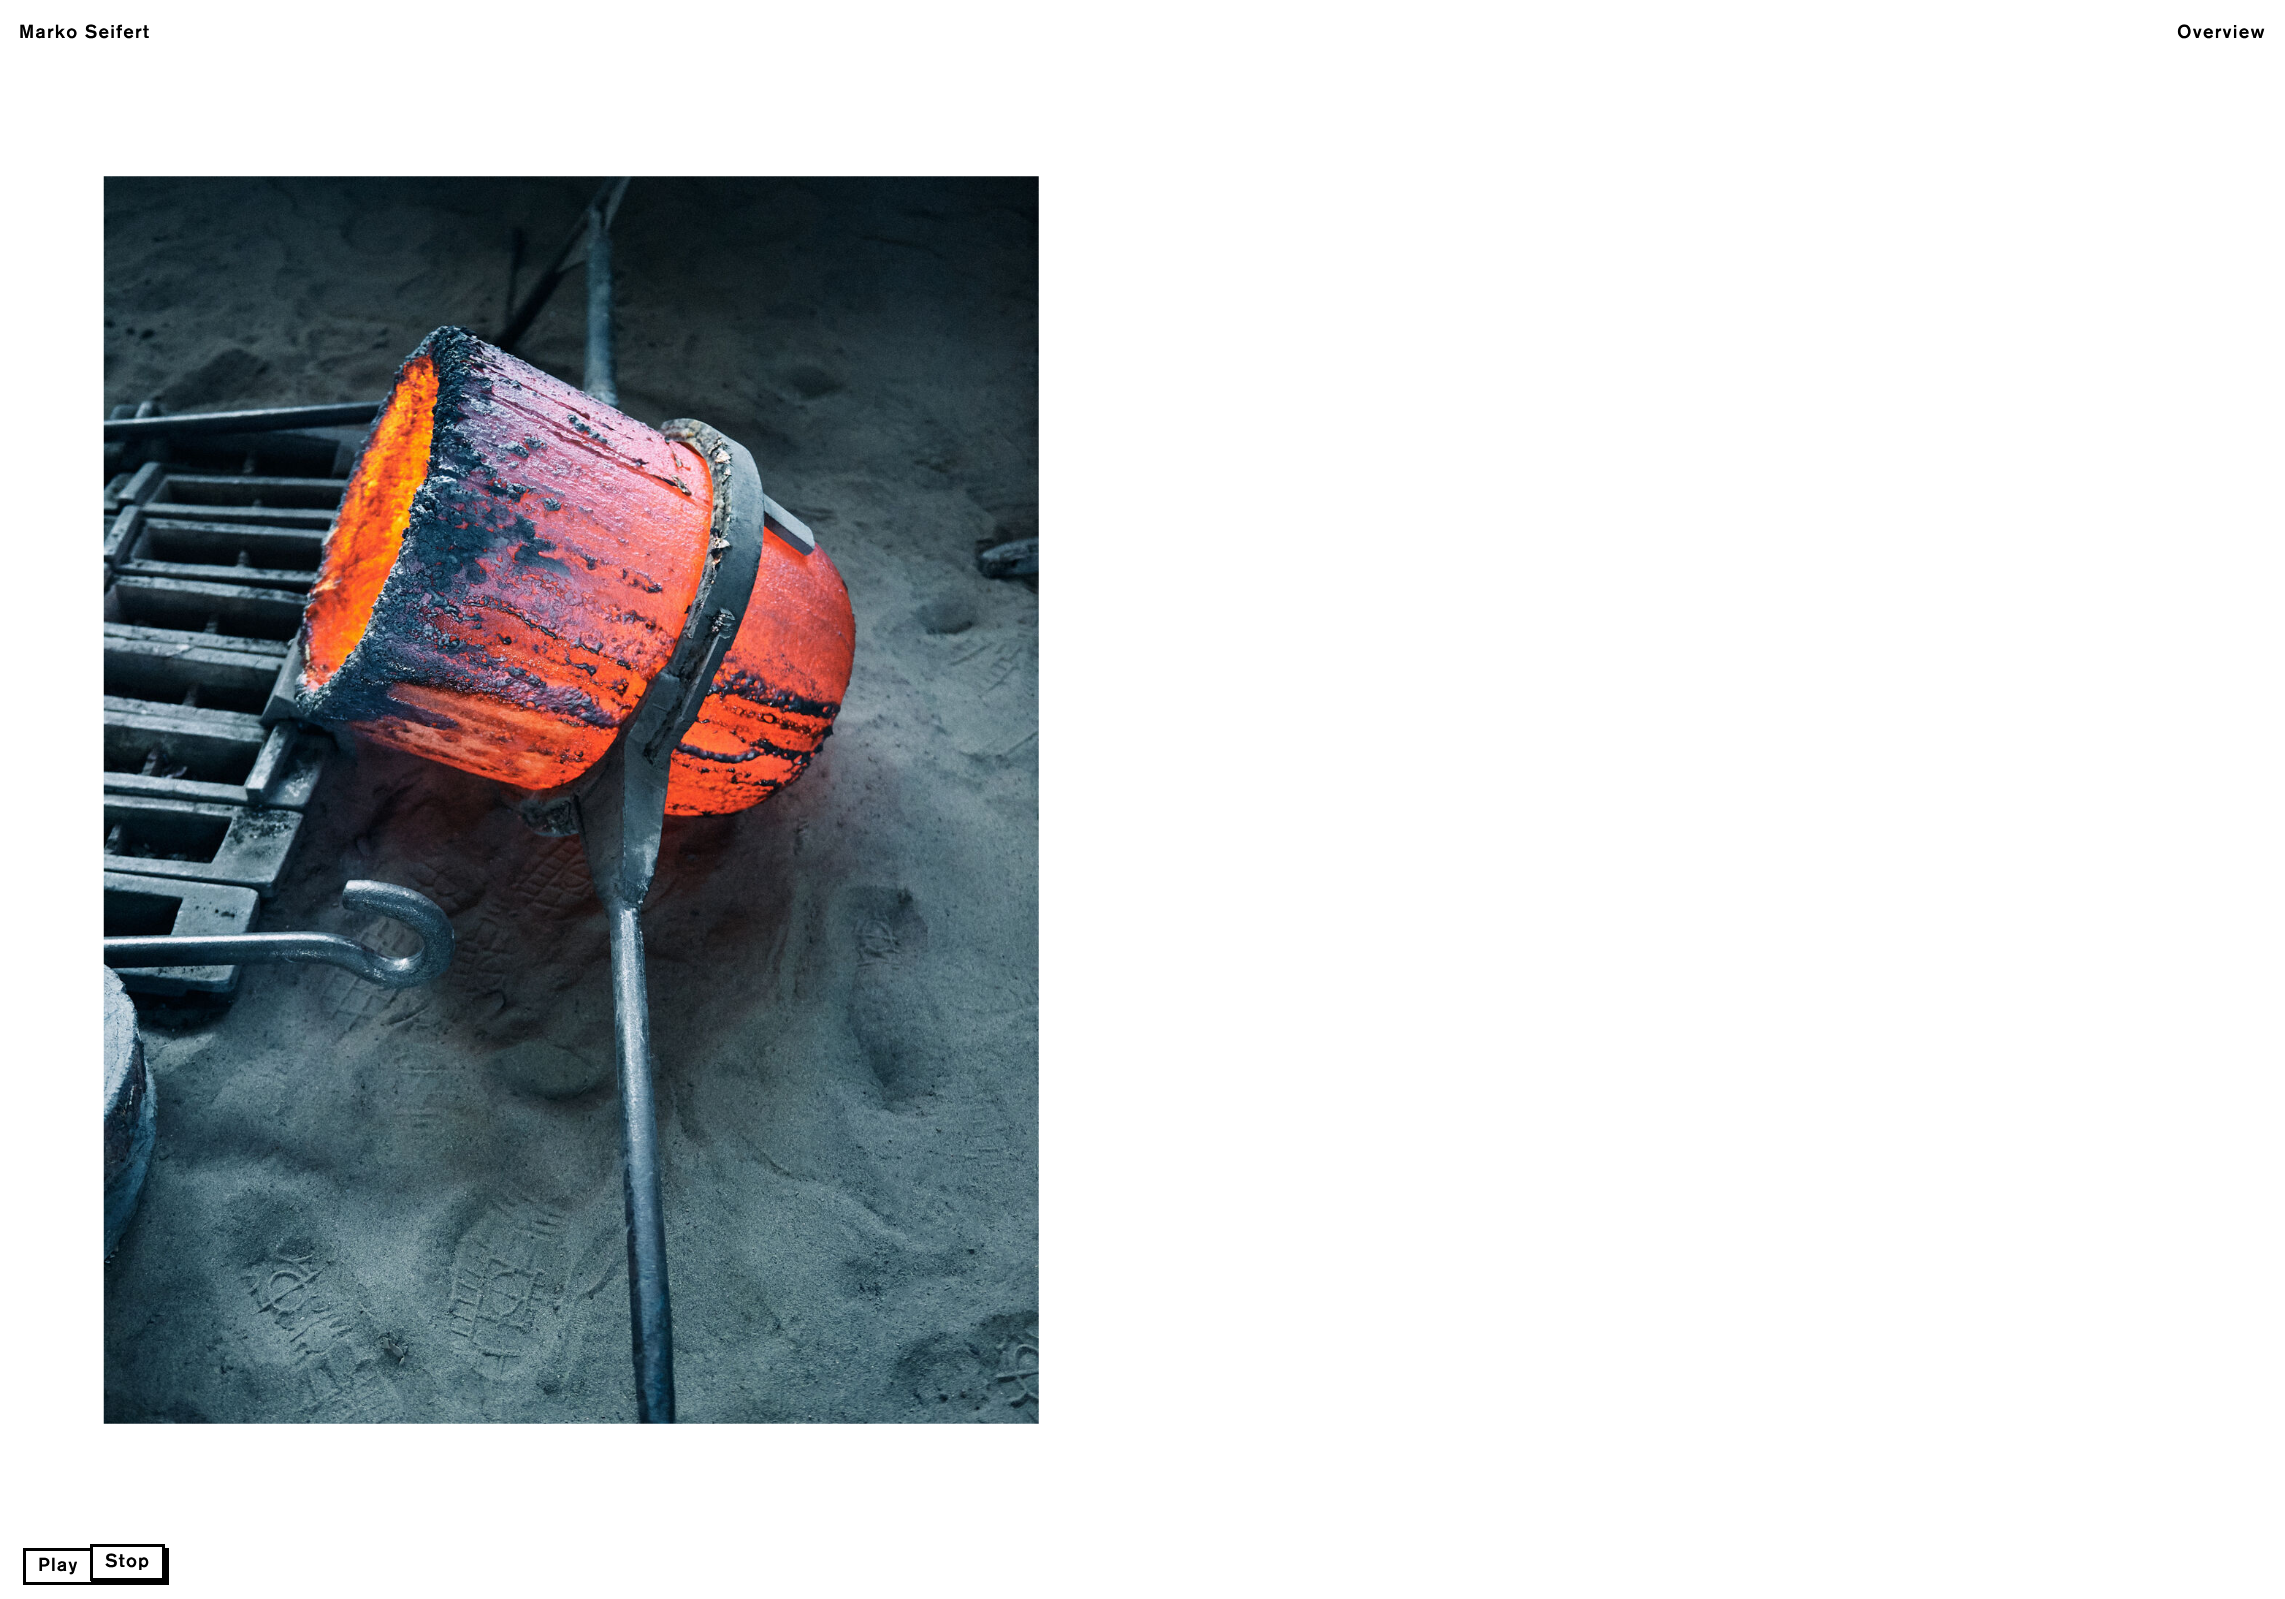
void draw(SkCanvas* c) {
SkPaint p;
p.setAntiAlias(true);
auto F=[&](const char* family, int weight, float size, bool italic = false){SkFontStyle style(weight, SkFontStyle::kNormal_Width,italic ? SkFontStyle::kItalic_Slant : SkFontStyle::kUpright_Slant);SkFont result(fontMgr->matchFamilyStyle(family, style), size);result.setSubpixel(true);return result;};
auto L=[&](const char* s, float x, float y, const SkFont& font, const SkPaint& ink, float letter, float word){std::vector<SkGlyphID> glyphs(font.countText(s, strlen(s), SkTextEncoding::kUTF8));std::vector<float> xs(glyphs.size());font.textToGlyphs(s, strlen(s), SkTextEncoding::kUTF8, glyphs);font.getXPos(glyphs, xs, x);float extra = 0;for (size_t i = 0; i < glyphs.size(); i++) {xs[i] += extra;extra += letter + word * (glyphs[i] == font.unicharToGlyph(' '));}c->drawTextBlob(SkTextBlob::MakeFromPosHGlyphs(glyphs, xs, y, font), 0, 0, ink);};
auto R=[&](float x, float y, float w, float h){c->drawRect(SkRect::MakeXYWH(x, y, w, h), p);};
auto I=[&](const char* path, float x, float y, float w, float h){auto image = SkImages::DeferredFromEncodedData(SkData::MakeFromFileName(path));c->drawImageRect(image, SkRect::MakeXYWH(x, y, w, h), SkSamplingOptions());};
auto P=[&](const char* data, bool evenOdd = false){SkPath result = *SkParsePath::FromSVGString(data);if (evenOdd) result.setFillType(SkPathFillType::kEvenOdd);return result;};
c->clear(0xffffffff);
auto f1 = F("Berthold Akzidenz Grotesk",500,18.75);
p.setColor(0xff000000);
L("Marko Seifert",19,38,f1,p,1.25,0);
L("Overview",2177,38,f1,p,1.25,0);
I("1.png",103,176,936,1248);
p.setStroke(true);
p.setStrokeWidth(3);
c->drawRect(SkRect::MakeXYWH(24.5,1549.5,68,34),p);
p.setStroke(false);
L("Play",38,1571,f1,p,1.25,0);
c->drawPath(P("M94 1581v4h75v-37h-4v33z"),p);
p.setColor(0xffffffff);
R(93,1548,1,30);
p.setStroke(true);
p.setColor(0xff000000);
c->drawRect(SkRect::MakeXYWH(91.5,1545.5,72,34),p);
p.setStroke(false);
L("Stop",105,1567,f1,p,1.25,0);
}
